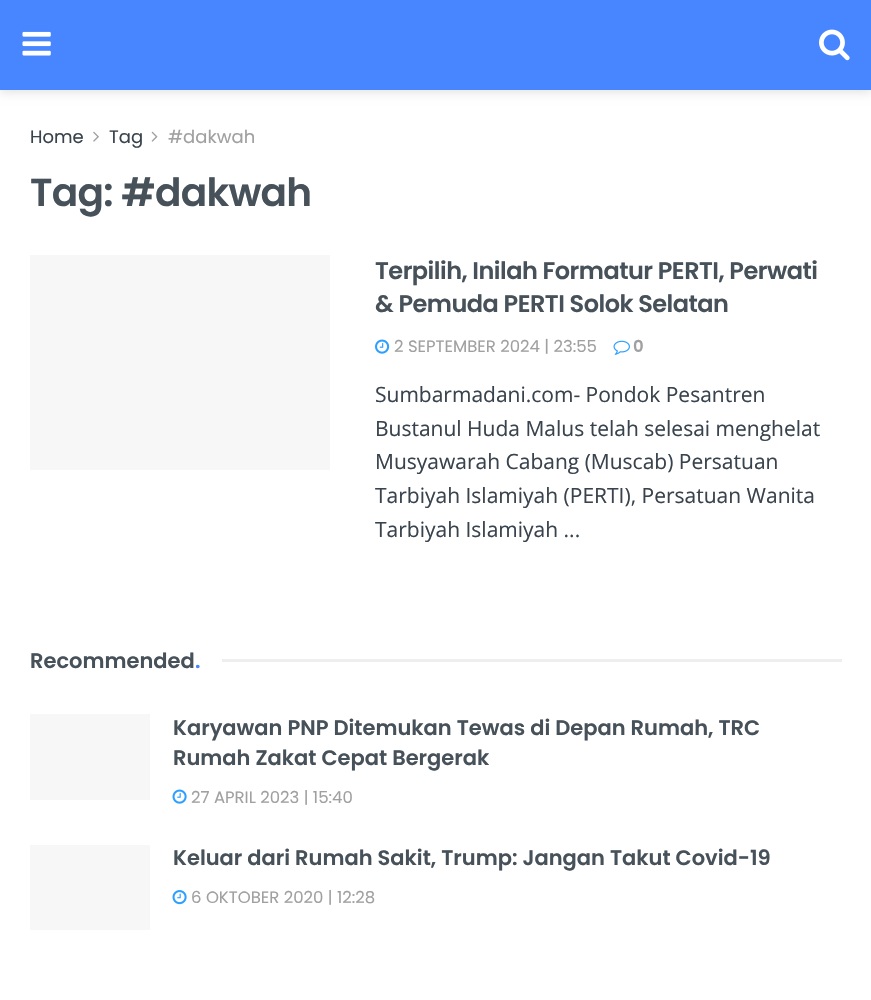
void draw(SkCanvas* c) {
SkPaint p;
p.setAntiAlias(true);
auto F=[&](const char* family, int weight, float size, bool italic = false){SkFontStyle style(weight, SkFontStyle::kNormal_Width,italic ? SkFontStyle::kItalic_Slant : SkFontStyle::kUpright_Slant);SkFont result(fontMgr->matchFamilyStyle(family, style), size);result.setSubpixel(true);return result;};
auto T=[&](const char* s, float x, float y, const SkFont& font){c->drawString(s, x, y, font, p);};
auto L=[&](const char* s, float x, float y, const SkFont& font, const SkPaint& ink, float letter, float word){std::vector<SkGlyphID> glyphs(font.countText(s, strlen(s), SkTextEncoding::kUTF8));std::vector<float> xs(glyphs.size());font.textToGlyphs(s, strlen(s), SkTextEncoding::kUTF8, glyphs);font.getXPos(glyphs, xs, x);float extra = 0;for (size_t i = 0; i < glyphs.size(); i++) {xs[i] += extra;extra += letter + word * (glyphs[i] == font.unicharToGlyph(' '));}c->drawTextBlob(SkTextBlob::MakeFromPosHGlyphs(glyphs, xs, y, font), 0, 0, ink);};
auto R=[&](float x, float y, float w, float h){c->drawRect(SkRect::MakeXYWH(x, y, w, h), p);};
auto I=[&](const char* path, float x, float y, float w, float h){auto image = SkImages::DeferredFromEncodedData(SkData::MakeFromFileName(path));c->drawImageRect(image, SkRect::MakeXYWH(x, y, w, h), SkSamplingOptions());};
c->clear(0xffffffff);
p.setColor(0x1a000000);
p.setMaskFilter(SkMaskFilter::MakeBlur(kNormal_SkBlurStyle, 4.5));
c->drawRect(SkRect::MakeXYWH(0,3,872,90),p);
p.setMaskFilter(nullptr);
p.setColor(0xff4886ff);
R(0,0,871,90);
I("1.png",22,31,29,25);
I("2.png",819,29,31,32);
auto f1 = F("Poppins",400,18);
p.setColor(0xff39434d);
T("Home",30,143,f1);
I("3.png",93,131,6,11);
T("Tag",109,143,f1);
I("4.png",151,131,7,11);
p.setColor(0xffa0a0a0);
T("#dakwah",168,143,f1);
auto f2 = F("Poppins",600,39);
p.setColor(0xff47515a);
L("Tag: #dakwah",30,206,f2,p,-.75,0);
p.setColor(0xfff7f7f7);
R(30,255,300,215);
auto f3 = F("Poppins",600,24);
p.setColor(0xff47515a);
L("Terpilih, Inilah Formatur PERTI, Perwati",375,279,f3,p,-.5,0);
L("& Pemuda PERTI Solok Selatan",375,312,f3,p,-.5,0);
I("5.png",375,339,15,15);
auto f4 = F("Poppins",400,16.5);
p.setColor(0xffa0a0a0);
T("2 SEPTEMBER 2024 | 23:55",394,352,f4);
I("6.png",613,340,17,15);
auto f5 = F("Poppins",600,16.5);
T("0",633,352,f5);
auto f6 = F("Open Sans",400,21);
p.setColor(0xff39434d);
T("Sumbarmadani.com- Pondok Pesantren",375,402,f6);
T("Bustanul Huda Malus telah selesai menghelat",375,436,f6);
T("Musyawarah Cabang (Muscab) Persatuan",375,469,f6);
T("Tarbiyah Islamiyah (PERTI), Persatuan Wanita",375,503,f6);
T("Tarbiyah Islamiyah ...",375,537,f6);
auto f7 = F("Poppins",600,21);
p.setColor(0xff47515a);
T("Recommended",30,668,f7);
p.setColor(0xff4886ff);
T(".",195,668,f7);
p.setColor(0xffeeeeee);
R(222,659,620,3);
p.setColor(0xfff7f7f7);
R(30,714,120,86);
p.setColor(0xff47515a);
T("Karyawan PNP Ditemukan Tewas di Depan Rumah, TRC",173,735,f7);
T("Rumah Zakat Cepat Bergerak",173,765,f7);
I("7.png",172,789,15,15);
p.setColor(0xffa0a0a0);
T("27 APRIL 2023 | 15:40",191,803,f4);
p.setColor(0xfff7f7f7);
R(30,845,120,85);
p.setColor(0xff47515a);
T("Keluar dari Rumah Sakit, Trump: Jangan Takut Covid-19",173,865,f7);
I("8.png",172,890,15,15);
p.setColor(0xffa0a0a0);
T("6 OKTOBER 2020 | 12:28",191,903,f4);
}
